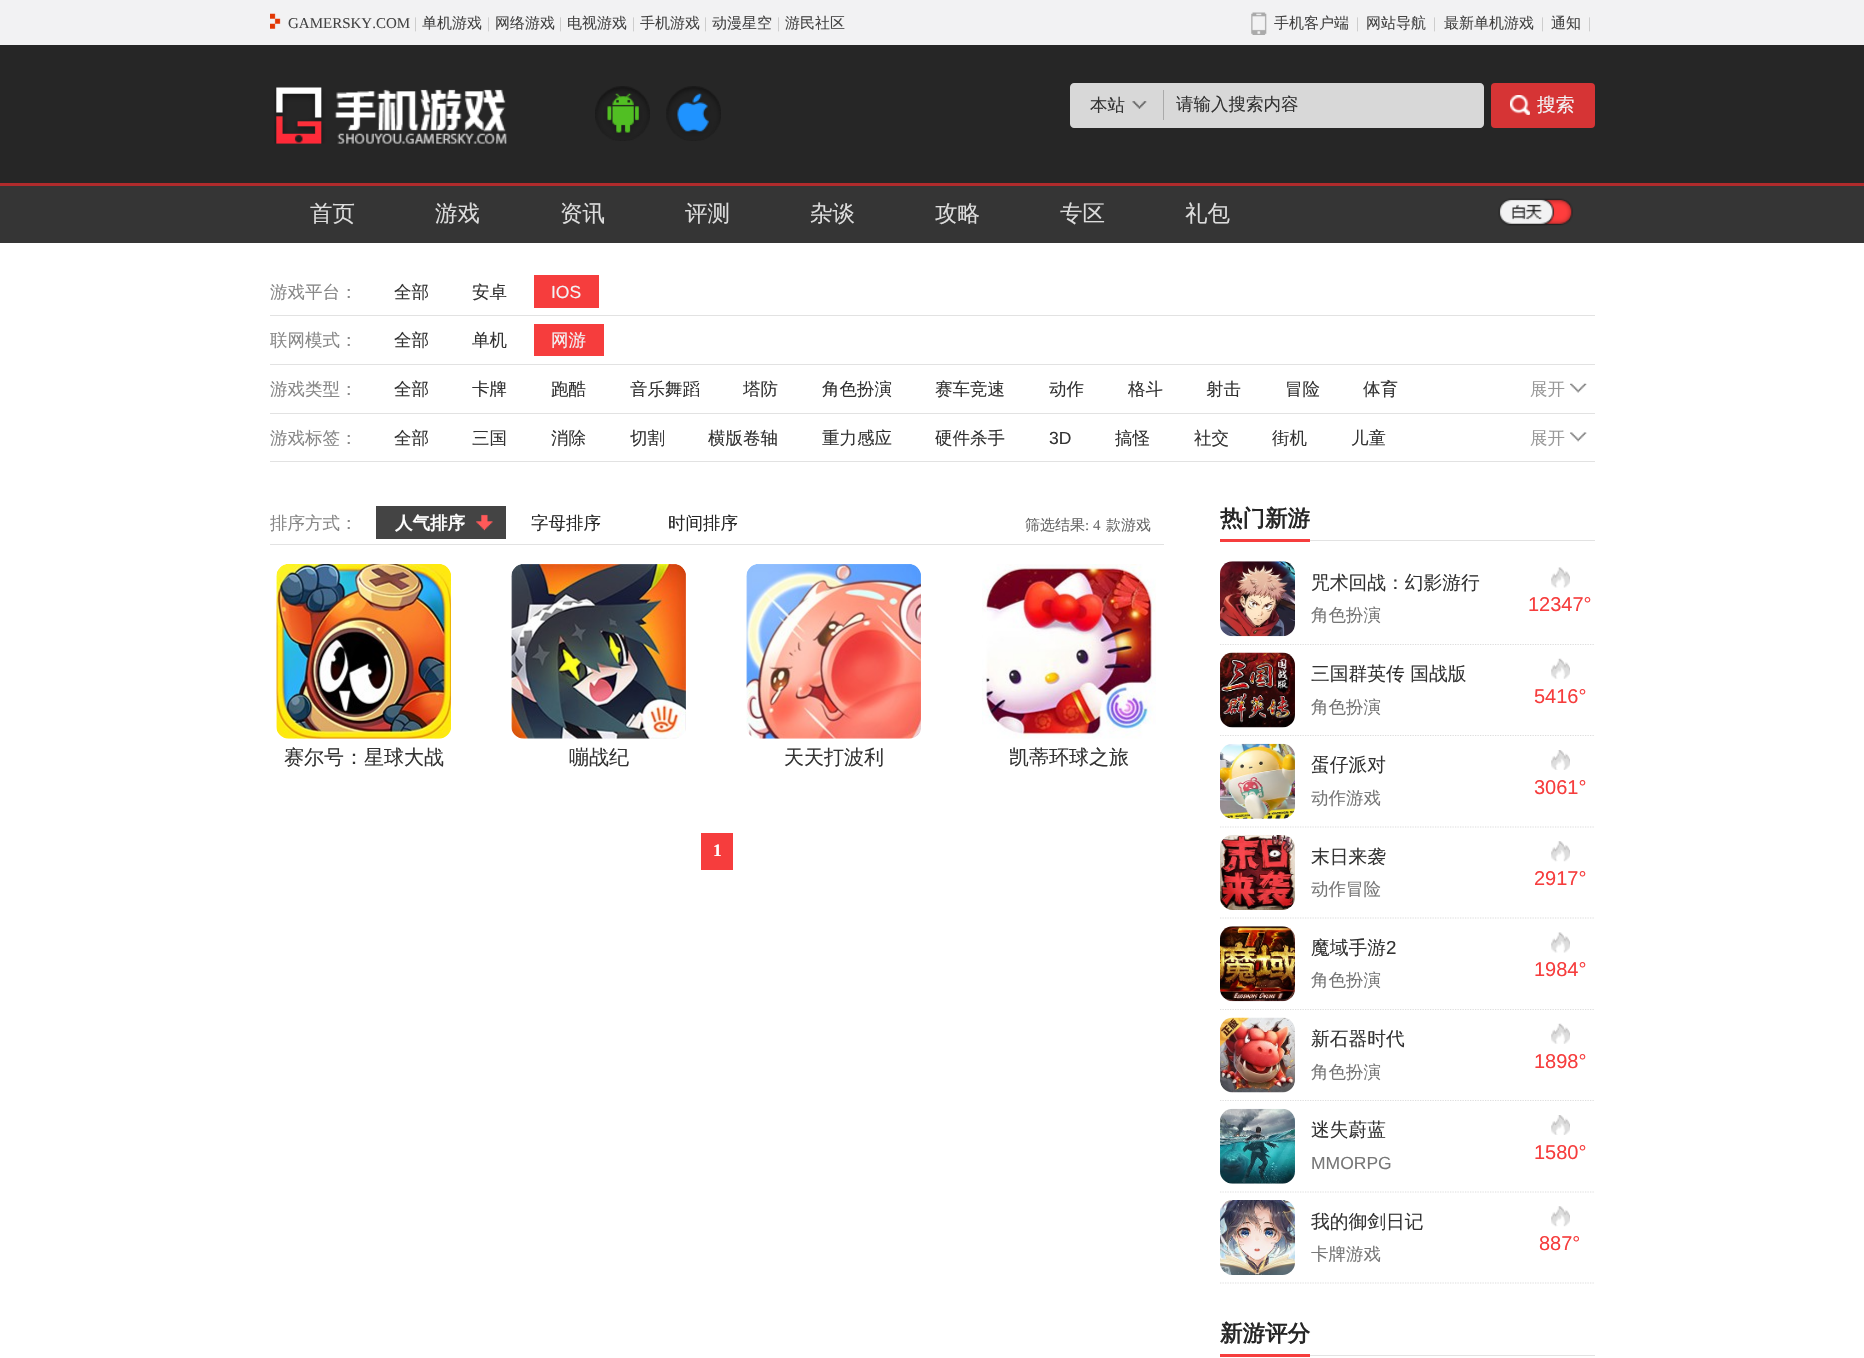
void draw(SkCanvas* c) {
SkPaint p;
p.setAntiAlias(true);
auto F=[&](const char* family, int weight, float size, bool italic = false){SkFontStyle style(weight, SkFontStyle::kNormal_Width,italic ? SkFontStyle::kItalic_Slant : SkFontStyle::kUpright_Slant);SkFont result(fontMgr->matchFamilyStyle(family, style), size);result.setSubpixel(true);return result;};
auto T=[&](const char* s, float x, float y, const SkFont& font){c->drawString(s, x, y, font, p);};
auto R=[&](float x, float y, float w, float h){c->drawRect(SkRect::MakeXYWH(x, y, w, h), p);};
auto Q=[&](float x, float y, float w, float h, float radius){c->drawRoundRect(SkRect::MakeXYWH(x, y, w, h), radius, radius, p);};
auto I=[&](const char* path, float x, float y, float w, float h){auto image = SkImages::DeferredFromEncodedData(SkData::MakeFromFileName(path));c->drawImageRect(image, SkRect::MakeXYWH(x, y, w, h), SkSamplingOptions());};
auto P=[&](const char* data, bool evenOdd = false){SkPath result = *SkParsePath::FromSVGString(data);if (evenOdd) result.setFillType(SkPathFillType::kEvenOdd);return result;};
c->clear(0xffffffff);
p.setColor(0xfff2f2f3);
R(0,0,1864,45);
I("1.png",270,13,11,16);
auto f1 = F("Liberation Serif",400,15);
p.setColor(0xff444444);
T("GAMERSKY.COM",288,28,f1);
p.setColor(0xffc5c5c5);
T("|",414,28,f1);
auto f2 = F("WenQuanYi Zen Hei",500,15);
p.setColor(0xff444444);
T("单机游戏",422,28,f2);
p.setColor(0xffc5c5c5);
T("|",487,28,f1);
p.setColor(0xff444444);
T("网络游戏",495,28,f2);
p.setColor(0xffc5c5c5);
T("|",559,28,f1);
p.setColor(0xff444444);
T("电视游戏",567,28,f2);
p.setColor(0xffc5c5c5);
T("|",632,28,f1);
p.setColor(0xff444444);
T("手机游戏",640,28,f2);
p.setColor(0xffc5c5c5);
T("|",704,28,f1);
p.setColor(0xff444444);
T("动漫星空",712,28,f2);
p.setColor(0xffc5c5c5);
T("|",777,28,f1);
p.setColor(0xff444444);
T("游民社区",785,28,f2);
I("2.png",1251,12,16,23);
T("手机客户端",1274,28,f2);
p.setColor(0xffc5c5c5);
T("|",1356,28,f1);
p.setColor(0xff444444);
T("网站导航",1366,28,f2);
p.setColor(0xffc5c5c5);
T("|",1433,28,f1);
p.setColor(0xff444444);
T("最新单机游戏",1444,28,f2);
p.setColor(0xffc5c5c5);
T("|",1541,28,f1);
p.setColor(0xff444444);
T("通知",1551,28,f2);
p.setColor(0xffc5c5c5);
T("|",1588,28,f1);
p.setColor(0xff262626);
R(0,45,1864,138);
I("3.png",274,87,233,57);
I("4.png",595,86,55,55);
I("5.png",666,86,55,55);
p.setColor(0xffd8d8d8);
c->drawPath(P("M1074 83h90v45h-90c-2 0-4-2-4-4v-37c0-2 2-4 4-4z"),p);
I("6.png",1132,101,15,8);
p.setColor(0xffaaaaaa);
R(1163,90,1,30);
auto f3 = F("WenQuanYi Zen Hei",500,17.5);
p.setColor(0xff333333);
T("本站",1090,111,f3);
p.setColor(0xffd8d8d8);
c->drawPath(P("M1164 83h316c2 0 4 2 4 4v37c0 2-2 4-4 4h-316z"),p);
p.setColor(0xff333333);
T("请输入搜索内容",1176,110,f3);
p.setColor(0xffd63435);
Q(1491,83,104,45,4);
I("7.png",1510,95,20,20);
auto f4 = F("WenQuanYi Zen Hei",500,18.75);
p.setColor(0xfff2f2f4);
T("搜索",1537,111,f4);
p.setColor(0xff353535);
R(0,186,1864,57);
p.setColor(0xffb02b2c);
R(0,183,1864,3);
auto f5 = F("WenQuanYi Zen Hei",500,22.5);
p.setColor(0xffdddddd);
T("首页",310,221,f5);
T("游戏",435,221,f5);
T("资讯",560,221,f5);
T("评测",685,221,f5);
T("杂谈",810,221,f5);
T("攻略",935,221,f5);
T("专区",1060,221,f5);
T("礼包",1185,221,f5);
I("8.png",1498,198,75,28);
p.setColor(0xffe2e2e2);
R(270,315,1325,1);
p.setColor(0xff888888);
T("游戏平台：",270,298,f3);
p.setColor(0xff333333);
T("全部",394,298,f3);
T("安卓",472,298,f3);
p.setColor(0xfff63d3d);
R(534,275,65,33);
auto f6 = F("Liberation Sans",400,17.5);
p.setColor(0xfff2f2f4);
T("IOS",551,298,f6);
p.setColor(0xffe2e2e2);
R(270,364,1325,1);
p.setColor(0xff888888);
T("联网模式：",270,346,f3);
p.setColor(0xff333333);
T("全部",394,346,f3);
T("单机",472,346,f3);
p.setColor(0xfff63d3d);
R(534,324,70,32);
p.setColor(0xfff2f2f4);
T("网游",551,346,f3);
p.setColor(0xffe2e2e2);
R(270,413,1325,1);
p.setColor(0xff888888);
T("游戏类型：",270,395,f3);
p.setColor(0xff333333);
T("全部",394,395,f3);
T("卡牌",472,395,f3);
T("跑酷",551,395,f3);
T("音乐舞蹈",630,395,f3);
T("塔防",743,395,f3);
T("角色扮演",822,395,f3);
T("赛车竞速",935,395,f3);
T("动作",1049,395,f3);
T("格斗",1128,395,f3);
T("射击",1206,395,f3);
T("冒险",1285,395,f3);
T("体育",1363,395,f3);
I("9.png",1570,383,17,10);
p.setColor(0xff999999);
T("展开",1530,395,f3);
p.setColor(0xffe2e2e2);
R(270,461,1325,1);
p.setColor(0xff888888);
T("游戏标签：",270,444,f3);
p.setColor(0xff333333);
T("全部",394,444,f3);
T("三国",472,444,f3);
T("消除",551,444,f3);
T("切割",630,444,f3);
T("横版卷轴",708,444,f3);
T("重力感应",822,444,f3);
T("硬件杀手",935,444,f3);
T("3D",1049,444,f6);
T("搞怪",1115,444,f3);
T("社交",1194,444,f3);
T("街机",1272,444,f3);
T("儿童",1351,444,f3);
I("10.png",1570,432,17,10);
p.setColor(0xff999999);
T("展开",1530,444,f3);
p.setColor(0xffe2e2e2);
R(270,544,894,1);
p.setColor(0xff888888);
T("排序方式：",270,529,f3);
p.setColor(0xff444444);
R(376,506,130,33);
I("11.png",476,514,17,17);
auto f7 = F("WenQuanYi Zen Hei",700,17.5);
p.setColor(0xffffffff);
T("人气排序",395,529,f7);
p.setColor(0xff262626);
T("字母排序",531,529,f3);
T("时间排序",668,529,f3);
p.setColor(0xff666666);
T("筛选结果",1025,530,f2);
T(": 4",1085,530,f1);
T("款游戏",1106,530,f2);
I("12.png",276,564,175,175);
auto f8 = F("WenQuanYi Zen Hei",500,20);
p.setColor(0xff333333);
T("赛尔号：星球大战",284,764,f8);
I("13.png",511,564,175,175);
T("嘣战纪",569,764,f8);
I("14.png",746,564,175,175);
T("天天打波利",784,764,f8);
I("15.png",982,564,174,175);
T("凯蒂环球之旅",1009,764,f8);
p.setColor(0xfff63d3d);
R(701,833,32,37);
auto f9 = F("Liberation Serif",700,17.5);
p.setColor(0xffffffff);
T("1",713,856,f9);
p.setColor(0xffe2e2e2);
R(1310,540,285,1);
p.setColor(0xfff63d3d);
R(1220,539,90,3);
auto f10 = F("WenQuanYi Zen Hei",700,22.5);
p.setColor(0xff262626);
T("热门新游",1220,526,f10);
p.setStroke(true);
p.setStrokeWidth(1.2);
p.setColor(0xffdddddd);
p.setPathEffect(SkDashPathEffect::Make({{1.25f,1.25f}}, 0));
c->drawPath(P("M1220 644.5h375"),p);
p.setPathEffect(nullptr);
I("16.png",1220,561,75,76);
p.setStroke(false);
p.setColor(0xff333333);
T("咒术回战：幻影游行",1311,589,f4);
p.setColor(0xff777777);
T("角色扮演",1311,621,f3);
I("17.png",1551,567,19,21);
auto f11 = F("Liberation Sans",400,20);
p.setColor(0xfff63d3d);
T("12347°",1528,611,f11);
p.setStroke(true);
p.setColor(0xffdddddd);
p.setPathEffect(SkDashPathEffect::Make({{1.25f,1.25f}}, 0));
c->drawPath(P("M1220 735.5h375"),p);
p.setPathEffect(nullptr);
I("18.png",1220,652,75,76);
p.setStroke(false);
p.setColor(0xff333333);
T("三国群英传 国战版",1311,680,f4);
p.setColor(0xff777777);
T("角色扮演",1311,713,f3);
I("19.png",1551,658,19,21);
p.setColor(0xfff63d3d);
T("5416°",1534,703,f11);
p.setStroke(true);
p.setColor(0xffdddddd);
p.setPathEffect(SkDashPathEffect::Make({{1.25f,1.25f}}, 0));
c->drawPath(P("M1220 827h375"),p);
p.setPathEffect(nullptr);
I("20.png",1220,743,75,76);
p.setStroke(false);
p.setColor(0xff333333);
T("蛋仔派对",1311,771,f4);
p.setColor(0xff777777);
T("动作游戏",1311,804,f3);
I("21.png",1551,750,19,20);
p.setColor(0xfff63d3d);
T("3061°",1534,794,f11);
p.setStroke(true);
p.setColor(0xffdddddd);
p.setPathEffect(SkDashPathEffect::Make({{1.25f,1.25f}}, 0));
c->drawPath(P("M1220 918h375"),p);
p.setPathEffect(nullptr);
I("22.png",1220,835,75,75);
p.setStroke(false);
p.setColor(0xff333333);
T("末日来袭",1311,863,f4);
p.setColor(0xff777777);
T("动作冒险",1311,895,f3);
I("23.png",1551,841,19,21);
p.setColor(0xfff63d3d);
T("2917°",1534,885,f11);
p.setStroke(true);
p.setColor(0xffdddddd);
p.setPathEffect(SkDashPathEffect::Make({{1.25f,1.25f}}, 0));
c->drawPath(P("M1220 1009.5h375"),p);
p.setPathEffect(nullptr);
I("24.png",1220,926,75,76);
p.setStroke(false);
p.setColor(0xff333333);
T("魔域手游",1311,954,f4);
auto f12 = F("Liberation Sans",400,18.75);
T("2",1386,954,f12);
p.setColor(0xff777777);
T("角色扮演",1311,986,f3);
I("17.png",1551,932,19,21);
p.setColor(0xfff63d3d);
T("1984°",1534,976,f11);
p.setStroke(true);
p.setColor(0xffdddddd);
p.setPathEffect(SkDashPathEffect::Make({{1.25f,1.25f}}, 0));
c->drawPath(P("M1220 1100.5h375"),p);
p.setPathEffect(nullptr);
I("25.png",1220,1017,75,76);
p.setStroke(false);
p.setColor(0xff333333);
T("新石器时代",1311,1045,f4);
p.setColor(0xff777777);
T("角色扮演",1311,1078,f3);
I("26.png",1551,1023,19,21);
p.setColor(0xfff63d3d);
T("1898°",1534,1068,f11);
p.setStroke(true);
p.setColor(0xffdddddd);
p.setPathEffect(SkDashPathEffect::Make({{1.25f,1.25f}}, 0));
c->drawPath(P("M1220 1192h375"),p);
p.setPathEffect(nullptr);
I("27.png",1220,1108,75,76);
p.setStroke(false);
p.setColor(0xff333333);
T("迷失蔚蓝",1311,1136,f4);
p.setColor(0xff777777);
T("MMORPG",1311,1169,f6);
I("21.png",1551,1115,19,20);
p.setColor(0xfff63d3d);
T("1580°",1534,1159,f11);
p.setStroke(true);
p.setColor(0xffdddddd);
p.setPathEffect(SkDashPathEffect::Make({{1.25f,1.25f}}, 0));
c->drawPath(P("M1220 1283h375"),p);
p.setPathEffect(nullptr);
I("28.png",1220,1200,75,75);
p.setStroke(false);
p.setColor(0xff333333);
T("我的御剑日记",1311,1228,f4);
p.setColor(0xff777777);
T("卡牌游戏",1311,1260,f3);
I("23.png",1551,1206,19,21);
p.setColor(0xfff63d3d);
T("887°",1539,1250,f11);
p.setColor(0xffe2e2e2);
R(1310,1355,285,1);
p.setColor(0xfff63d3d);
R(1220,1354,90,3);
p.setColor(0xff262626);
T("新游评分",1220,1341,f10);
}
